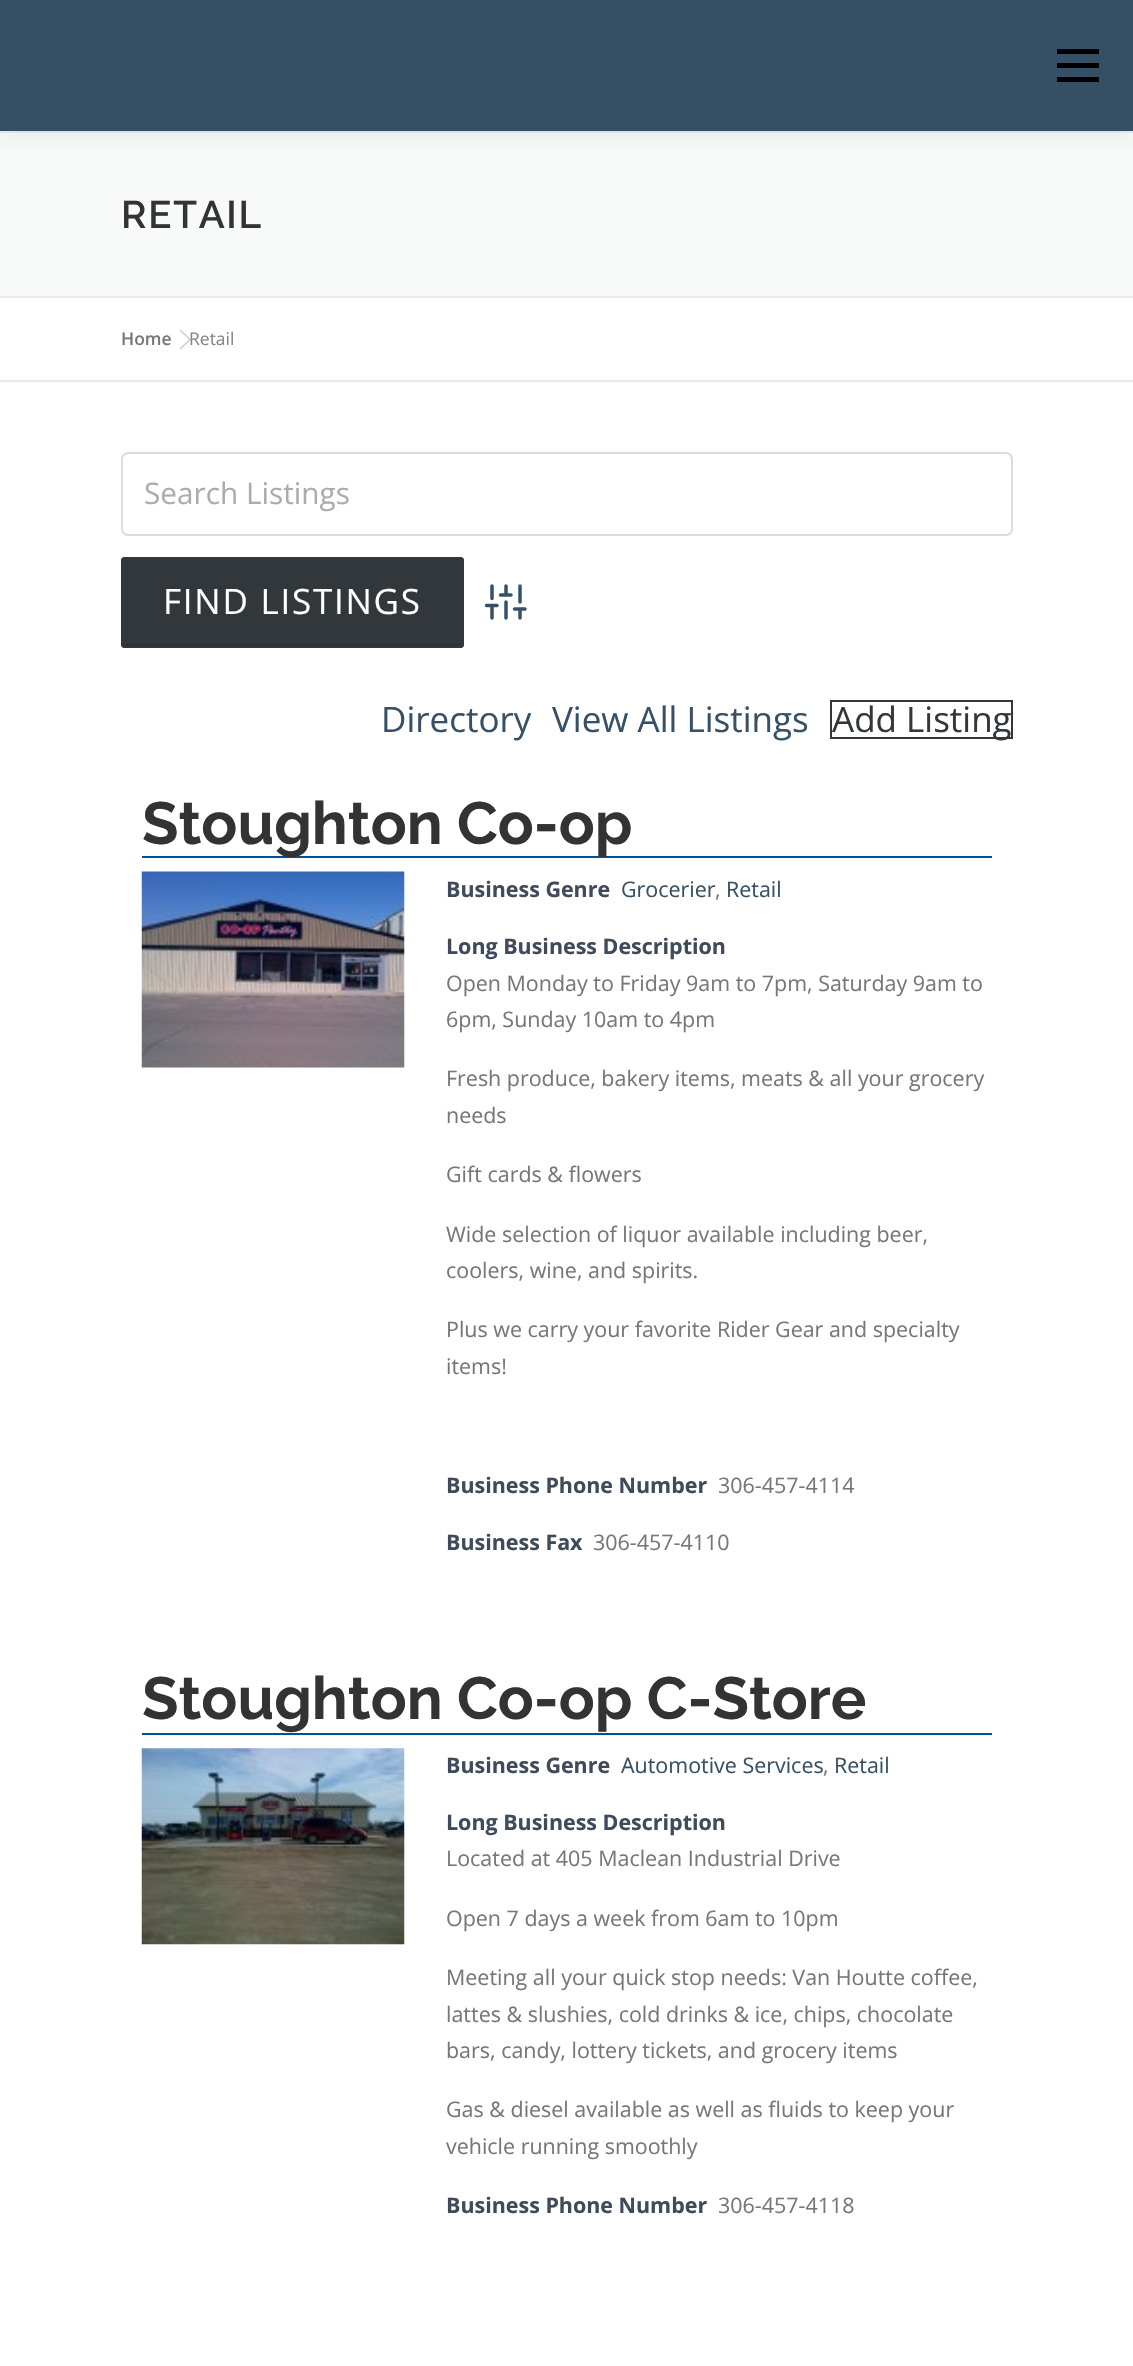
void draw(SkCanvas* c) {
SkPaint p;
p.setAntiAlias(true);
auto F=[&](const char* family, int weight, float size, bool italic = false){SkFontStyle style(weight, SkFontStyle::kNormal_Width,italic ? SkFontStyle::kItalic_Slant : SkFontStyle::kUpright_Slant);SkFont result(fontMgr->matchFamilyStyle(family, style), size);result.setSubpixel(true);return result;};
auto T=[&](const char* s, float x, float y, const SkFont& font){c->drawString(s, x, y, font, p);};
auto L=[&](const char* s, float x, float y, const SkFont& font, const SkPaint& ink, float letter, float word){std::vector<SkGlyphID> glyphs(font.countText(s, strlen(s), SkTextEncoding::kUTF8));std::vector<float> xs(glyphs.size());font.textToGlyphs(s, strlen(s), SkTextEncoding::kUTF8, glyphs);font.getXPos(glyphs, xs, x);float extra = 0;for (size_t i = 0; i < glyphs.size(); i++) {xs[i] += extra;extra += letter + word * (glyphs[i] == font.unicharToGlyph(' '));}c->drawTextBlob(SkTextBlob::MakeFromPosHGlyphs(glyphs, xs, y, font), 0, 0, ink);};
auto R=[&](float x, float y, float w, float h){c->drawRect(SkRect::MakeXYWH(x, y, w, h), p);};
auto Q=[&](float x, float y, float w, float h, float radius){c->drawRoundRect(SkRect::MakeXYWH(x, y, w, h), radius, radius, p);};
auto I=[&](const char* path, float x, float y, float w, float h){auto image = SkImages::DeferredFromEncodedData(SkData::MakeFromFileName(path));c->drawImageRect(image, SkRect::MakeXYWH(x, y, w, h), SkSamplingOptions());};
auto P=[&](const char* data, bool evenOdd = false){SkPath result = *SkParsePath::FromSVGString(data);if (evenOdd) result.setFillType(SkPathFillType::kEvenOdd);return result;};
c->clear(0xffffffff);
p.setColor(0xfff8f9f9);
R(0,133,1133,163);
p.setColor(0xffe9e9e9);
R(0,131,1133,2);
p.setColor(0x0f323232);
p.setMaskFilter(SkMaskFilter::MakeBlur(kNormal_SkBlurStyle, 9));
c->drawRect(SkRect::MakeXYWH(0,9,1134,131),p);
p.setMaskFilter(nullptr);
p.setColor(0xff355065);
R(0,0,1133,131);
p.setColor(0xff000000);
R(1057,63,42,5);
R(1057,49,42,5);
R(1057,77,42,5);
p.setColor(0xffe9e9e9);
R(0,296,1133,2);
auto f1 = F("Raleway",600,38.5);
p.setColor(0xff333333);
L("RETAIL",121,228,f1,p,1.75,0);
p.setColor(0xffe9e9e9);
R(0,380,1133,2);
p.setColor(0x33000000);
c->drawPath(P("M180 350v-21l11 10.5z"),p);
auto f2 = F("Open Sans",600,17.5);
p.setColor(0xff777777);
T("Home",121,345,f2);
p.setColor(0xffffffff);
c->drawPath(P("M180 348v-17l9 8.5z"),p);
auto f3 = F("Open Sans",400,17.5);
p.setColor(0xff858585);
T("Retail",189,345,f3);
p.setStroke(true);
p.setStrokeWidth(2);
p.setColor(0xffd9dbde);
c->drawRoundRect(SkRect::MakeXYWH(122,453,890,82),6,6,p);
auto f4 = F("Open Sans",400,29.75);
p.setStroke(false);
p.setColor(0xffacacac);
T("Search Listings",144,504,f4);
p.setColor(0xff32373c);
Q(121,557,343,91,4);
p.setColor(0xff2d3236);
c->drawPath(P("M123 644c0 1 0 2 2 2h336c1-1 1-3 1-4c0 1-1 2-2 2z"),p);
p.setStroke(true);
p.setColor(0xff32373c);
c->drawRoundRect(SkRect::MakeXYWH(122,558,341,89),3,3,p);
auto f5 = F("Open Sans",400,35);
p.setStroke(false);
p.setColor(0xffffffff);
L("FIND LISTINGS",163,614,f5,p,1.75,0);
p.setStroke(true);
p.setStrokeWidth(3.5);
p.setStrokeCap(SkPaint::kRound_Cap);
p.setStrokeJoin(SkPaint::kRound_Join);
p.setColor(0xff365166);
c->drawPath(P("M492 618v-12.5m0-7v-12.5m14 32v-16m0-7v-9m14 32v-9m0-7v-16m-33.5 19.5h10.5m3.5-10.5h10.5m3.5 14h10.5"),p);
p.setStroke(false);
T("Directory",381,732,f5);
T("View All Listings",552,732,f5);
p.setStroke(true);
p.setStrokeWidth(2);
p.setStrokeCap(SkPaint::kButt_Cap);
p.setStrokeJoin(SkPaint::kMiter_Join);
p.setColor(0xff32373c);
c->drawRect(SkRect::MakeXYWH(831,701,181,37),p);
p.setStroke(false);
T("Add Listing",832,732,f5);
p.setColor(0xff044f8d);
R(142,856,850,2);
auto f6 = F("Raleway",700,59.5);
p.setColor(0xff333333);
T("Stoughton Co-op",142,844,f6);
I("1.png",141,871,264,197);
auto f7 = F("Open Sans",700,21.45);
p.setColor(0xff3f4b5b);
T("Business Genre",446,897,f7);
auto f8 = F("Open Sans",400,21.45);
p.setColor(0xff365166);
T("Grocerier",621,897,f8);
p.setColor(0xff777777);
T(",",715,897,f8);
p.setColor(0xff365166);
T("Retail",726,897,f8);
p.setColor(0xff3f4b5b);
T("Long Business Description",446,954,f7);
p.setColor(0xff777777);
T("Open Monday to Friday 9am to 7pm, Saturday 9am to",446,991,f8);
T("6pm, Sunday 10am to 4pm",446,1027,f8);
T("Fresh produce, bakery items, meats & all your grocery",446,1086,f8);
T("needs",446,1123,f8);
T("Gift cards & flowers",446,1182,f8);
T("Wide selection of liquor available including beer,",446,1242,f8);
T("coolers, wine, and spirits.",446,1278,f8);
T("Plus we carry your favorite Rider Gear and specialty",446,1337,f8);
T("items!",446,1374,f8);
p.setColor(0xff3f4b5b);
T("Business Phone Number",446,1493,f7);
p.setColor(0xff777777);
T("306-457-4114",718,1493,f8);
p.setColor(0xff3f4b5b);
T("Business Fax",446,1550,f7);
p.setColor(0xff777777);
T("306-457-4110",593,1550,f8);
p.setColor(0xff044f8d);
R(142,1733,850,2);
p.setColor(0xff333333);
T("Stoughton Co-op C-Store",142,1719,f6);
I("2.png",141,1748,264,197);
p.setColor(0xff3f4b5b);
T("Business Genre",446,1773,f7);
p.setColor(0xff365166);
T("Automotive Services",621,1773,f8);
p.setColor(0xff777777);
T(",",823,1773,f8);
p.setColor(0xff365166);
T("Retail",834,1773,f8);
p.setColor(0xff3f4b5b);
T("Long Business Description",446,1830,f7);
p.setColor(0xff777777);
T("Located at 405 Maclean Industrial Drive",446,1866,f8);
T("Open 7 days a week from 6am to 10pm",446,1926,f8);
T("Meeting all your quick stop needs: Van Houtte coffee,",446,1985,f8);
T("lattes & slushies, cold drinks & ice, chips, chocolate",446,2022,f8);
T("bars, candy, lottery tickets, and grocery items",446,2058,f8);
T("Gas & diesel available as well as fluids to keep your",446,2117,f8);
T("vehicle running smoothly",446,2154,f8);
p.setColor(0xff3f4b5b);
T("Business Phone Number",446,2213,f7);
p.setColor(0xff777777);
T("306-457-4118",718,2213,f8);
}
